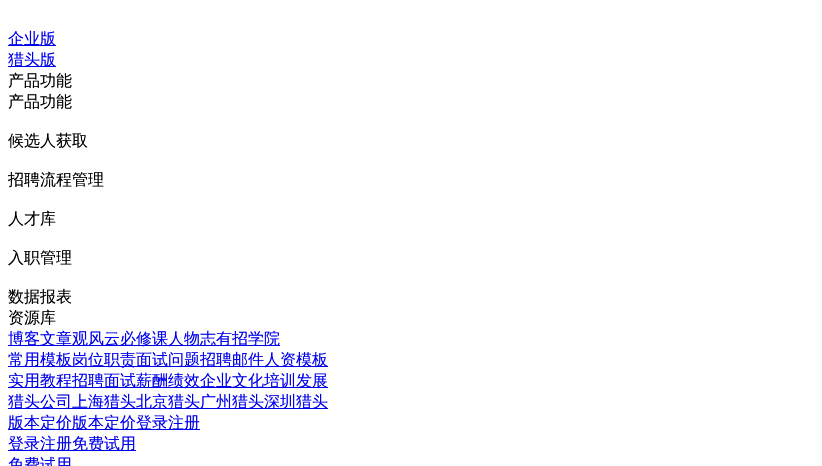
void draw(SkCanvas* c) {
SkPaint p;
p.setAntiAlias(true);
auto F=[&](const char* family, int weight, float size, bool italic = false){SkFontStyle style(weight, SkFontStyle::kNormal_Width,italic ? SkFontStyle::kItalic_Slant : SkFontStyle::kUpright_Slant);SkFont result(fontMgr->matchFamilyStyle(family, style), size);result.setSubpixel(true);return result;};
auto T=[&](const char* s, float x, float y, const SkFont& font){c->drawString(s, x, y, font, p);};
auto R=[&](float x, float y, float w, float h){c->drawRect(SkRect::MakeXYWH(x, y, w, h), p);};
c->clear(0xffffffff);
p.setColor(0xff0000ee);
R(8,45,48,1);
auto f1 = F("WenQuanYi Zen Hei",500,16);
T("企业版",8,44,f1);
R(8,66,48,1);
T("猎头版",8,65,f1);
p.setColor(0xff000000);
T("产品功能",8,86,f1);
T("产品功能",8,107,f1);
T("候选人获取",8,146,f1);
T("招聘流程管理",8,185,f1);
T("人才库",8,224,f1);
T("入职管理",8,263,f1);
T("数据报表",8,302,f1);
T("资源库",8,323,f1);
p.setColor(0xff0000ee);
R(8,345,272,1);
T("博客文章观风云必修课人物志有招学院",8,344,f1);
R(8,366,320,1);
T("常用模板岗位职责面试问题招聘邮件人资模板",8,365,f1);
R(8,387,320,1);
T("实用教程招聘面试薪酬绩效企业文化培训发展",8,386,f1);
R(8,408,320,1);
T("猎头公司上海猎头北京猎头广州猎头深圳猎头",8,407,f1);
R(8,429,192,1);
T("版本定价版本定价登录注册",8,428,f1);
R(8,450,128,1);
T("登录注册免费试用",8,449,f1);
T("免费试用",8,470,f1);
}
